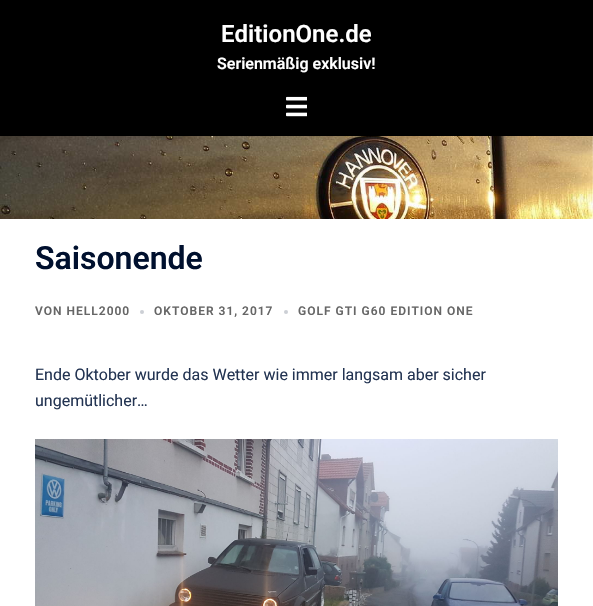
void draw(SkCanvas* c) {
SkPaint p;
p.setAntiAlias(true);
auto F=[&](const char* family, int weight, float size, bool italic = false){SkFontStyle style(weight, SkFontStyle::kNormal_Width,italic ? SkFontStyle::kItalic_Slant : SkFontStyle::kUpright_Slant);SkFont result(fontMgr->matchFamilyStyle(family, style), size);result.setSubpixel(true);return result;};
auto T=[&](const char* s, float x, float y, const SkFont& font){c->drawString(s, x, y, font, p);};
auto L=[&](const char* s, float x, float y, const SkFont& font, const SkPaint& ink, float letter, float word){std::vector<SkGlyphID> glyphs(font.countText(s, strlen(s), SkTextEncoding::kUTF8));std::vector<float> xs(glyphs.size());font.textToGlyphs(s, strlen(s), SkTextEncoding::kUTF8, glyphs);font.getXPos(glyphs, xs, x);float extra = 0;for (size_t i = 0; i < glyphs.size(); i++) {xs[i] += extra;extra += letter + word * (glyphs[i] == font.unicharToGlyph(' '));}c->drawTextBlob(SkTextBlob::MakeFromPosHGlyphs(glyphs, xs, y, font), 0, 0, ink);};
auto R=[&](float x, float y, float w, float h){c->drawRect(SkRect::MakeXYWH(x, y, w, h), p);};
auto I=[&](const char* path, float x, float y, float w, float h){auto image = SkImages::DeferredFromEncodedData(SkData::MakeFromFileName(path));c->drawImageRect(image, SkRect::MakeXYWH(x, y, w, h), SkSamplingOptions());};
c->clear(0xffffffff);
I("1.png",0,136,593,83);
p.setColor(0xff000000);
R(0,0,593,136);
auto f1 = F("Roboto",600,24);
p.setColor(0xffffffff);
T("EditionOne.de",221,42,f1);
auto f2 = F("Roboto",600,16);
T("Serienmäßig exklusiv!",217,69,f2);
I("2.png",286,96,21,21);
auto f3 = F("Roboto",600,32);
p.setColor(0xff00102e);
T("Saisonende",35,269,f3);
auto f4 = F("Roboto",600,12);
p.setColor(0xff666666);
L("VON HELL2000",35,315,f4,p,1,0);
p.setColor(0xffcccfd5);
c->drawCircle(142,312,2,p);
p.setColor(0xff666666);
L("OKTOBER 31, 2017",154,315,f4,p,1,0);
p.setColor(0xffcccfd5);
c->drawCircle(286,312,2,p);
p.setColor(0xff666666);
L("GOLF GTI G60 EDITION ONE",298,315,f4,p,1,0);
auto f5 = F("Roboto",400,16);
p.setColor(0xff233452);
T("Ende Oktober wurde das Wetter wie immer langsam aber sicher",35,380,f5);
T("ungemütlicher…",35,406,f5);
I("3.png",35,439,523,167);
}
